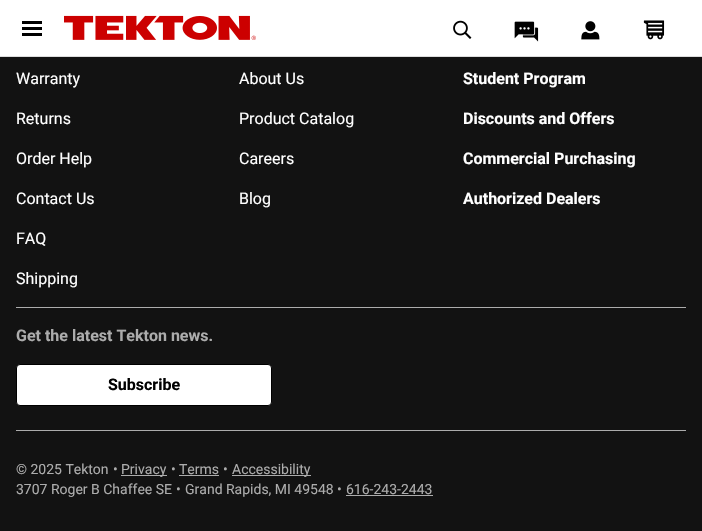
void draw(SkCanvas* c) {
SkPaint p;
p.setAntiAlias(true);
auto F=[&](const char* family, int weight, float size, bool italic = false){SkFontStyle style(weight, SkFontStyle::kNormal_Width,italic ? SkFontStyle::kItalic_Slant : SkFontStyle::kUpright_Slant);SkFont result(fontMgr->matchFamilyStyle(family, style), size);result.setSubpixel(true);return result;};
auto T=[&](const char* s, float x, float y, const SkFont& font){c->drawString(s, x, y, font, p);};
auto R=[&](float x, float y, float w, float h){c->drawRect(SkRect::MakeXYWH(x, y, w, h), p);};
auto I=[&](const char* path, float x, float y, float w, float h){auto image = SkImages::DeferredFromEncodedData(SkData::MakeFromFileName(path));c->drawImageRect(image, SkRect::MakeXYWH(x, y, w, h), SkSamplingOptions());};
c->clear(0xff121212);
p.setColor(0xffffffff);
R(0,0,702,56);
p.setColor(0xffdddddd);
R(0,56,702,1);
p.setColor(0xff000000);
R(22,27,20,3);
R(22,21,20,3);
R(22,33,20,3);
I("1.png",64,15,192,25);
I("2.png",453,20,19,19);
I("3.png",514,21,25,21);
I("4.png",581,21,19,19);
I("5.png",643,20,22,20);
auto f1 = F("Roboto",400,16);
p.setColor(0xffffffff);
T("Warranty",16,84,f1);
T("Returns",16,124,f1);
T("Order Help",16,164,f1);
T("Contact Us",16,204,f1);
T("FAQ",16,244,f1);
T("Shipping",16,284,f1);
T("About Us",239,84,f1);
T("Product Catalog",239,124,f1);
T("Careers",239,164,f1);
T("Blog",239,204,f1);
auto f2 = F("Roboto",700,16);
T("Student Program",463,84,f2);
T("Discounts and Offers",463,124,f2);
T("Commercial Purchasing",463,164,f2);
T("Authorized Dealers",463,204,f2);
p.setColor(0xffacacac);
R(16,307,670,1);
T("Get the latest Tekton news.",16,341,f2);
p.setColor(0xffffffff);
c->drawRoundRect(SkRect::MakeXYWH(16.5,364.5,255,41),3.5,3.5,p);
p.setStroke(true);
p.setStrokeWidth(1);
p.setColor(0xff000000);
c->drawRoundRect(SkRect::MakeXYWH(16.5,364.5,255,41),3.5,3.5,p);
p.setStroke(false);
T("Subscribe",108,390,f2);
p.setColor(0xffacacac);
R(16,430,670,1);
auto f3 = F("Roboto",400,14);
T("© 2025 Tekton",16,474,f3);
T("•",113,474,f3);
R(121,475,46,1);
T("Privacy",121,474,f3);
T("•",171,474,f3);
T("Terms",179,474,f3);
R(179,475,40,1);
T("•",223,474,f3);
R(232,475,79,1);
T("Accessibility",232,474,f3);
T("3707 Roger B Chaffee SE",16,494,f3);
T("•",176,494,f3);
T("Grand Rapids, MI 49548",185,494,f3);
T("•",337,494,f3);
T("616-243-2443",346,494,f3);
R(346,495,87,1);
}
